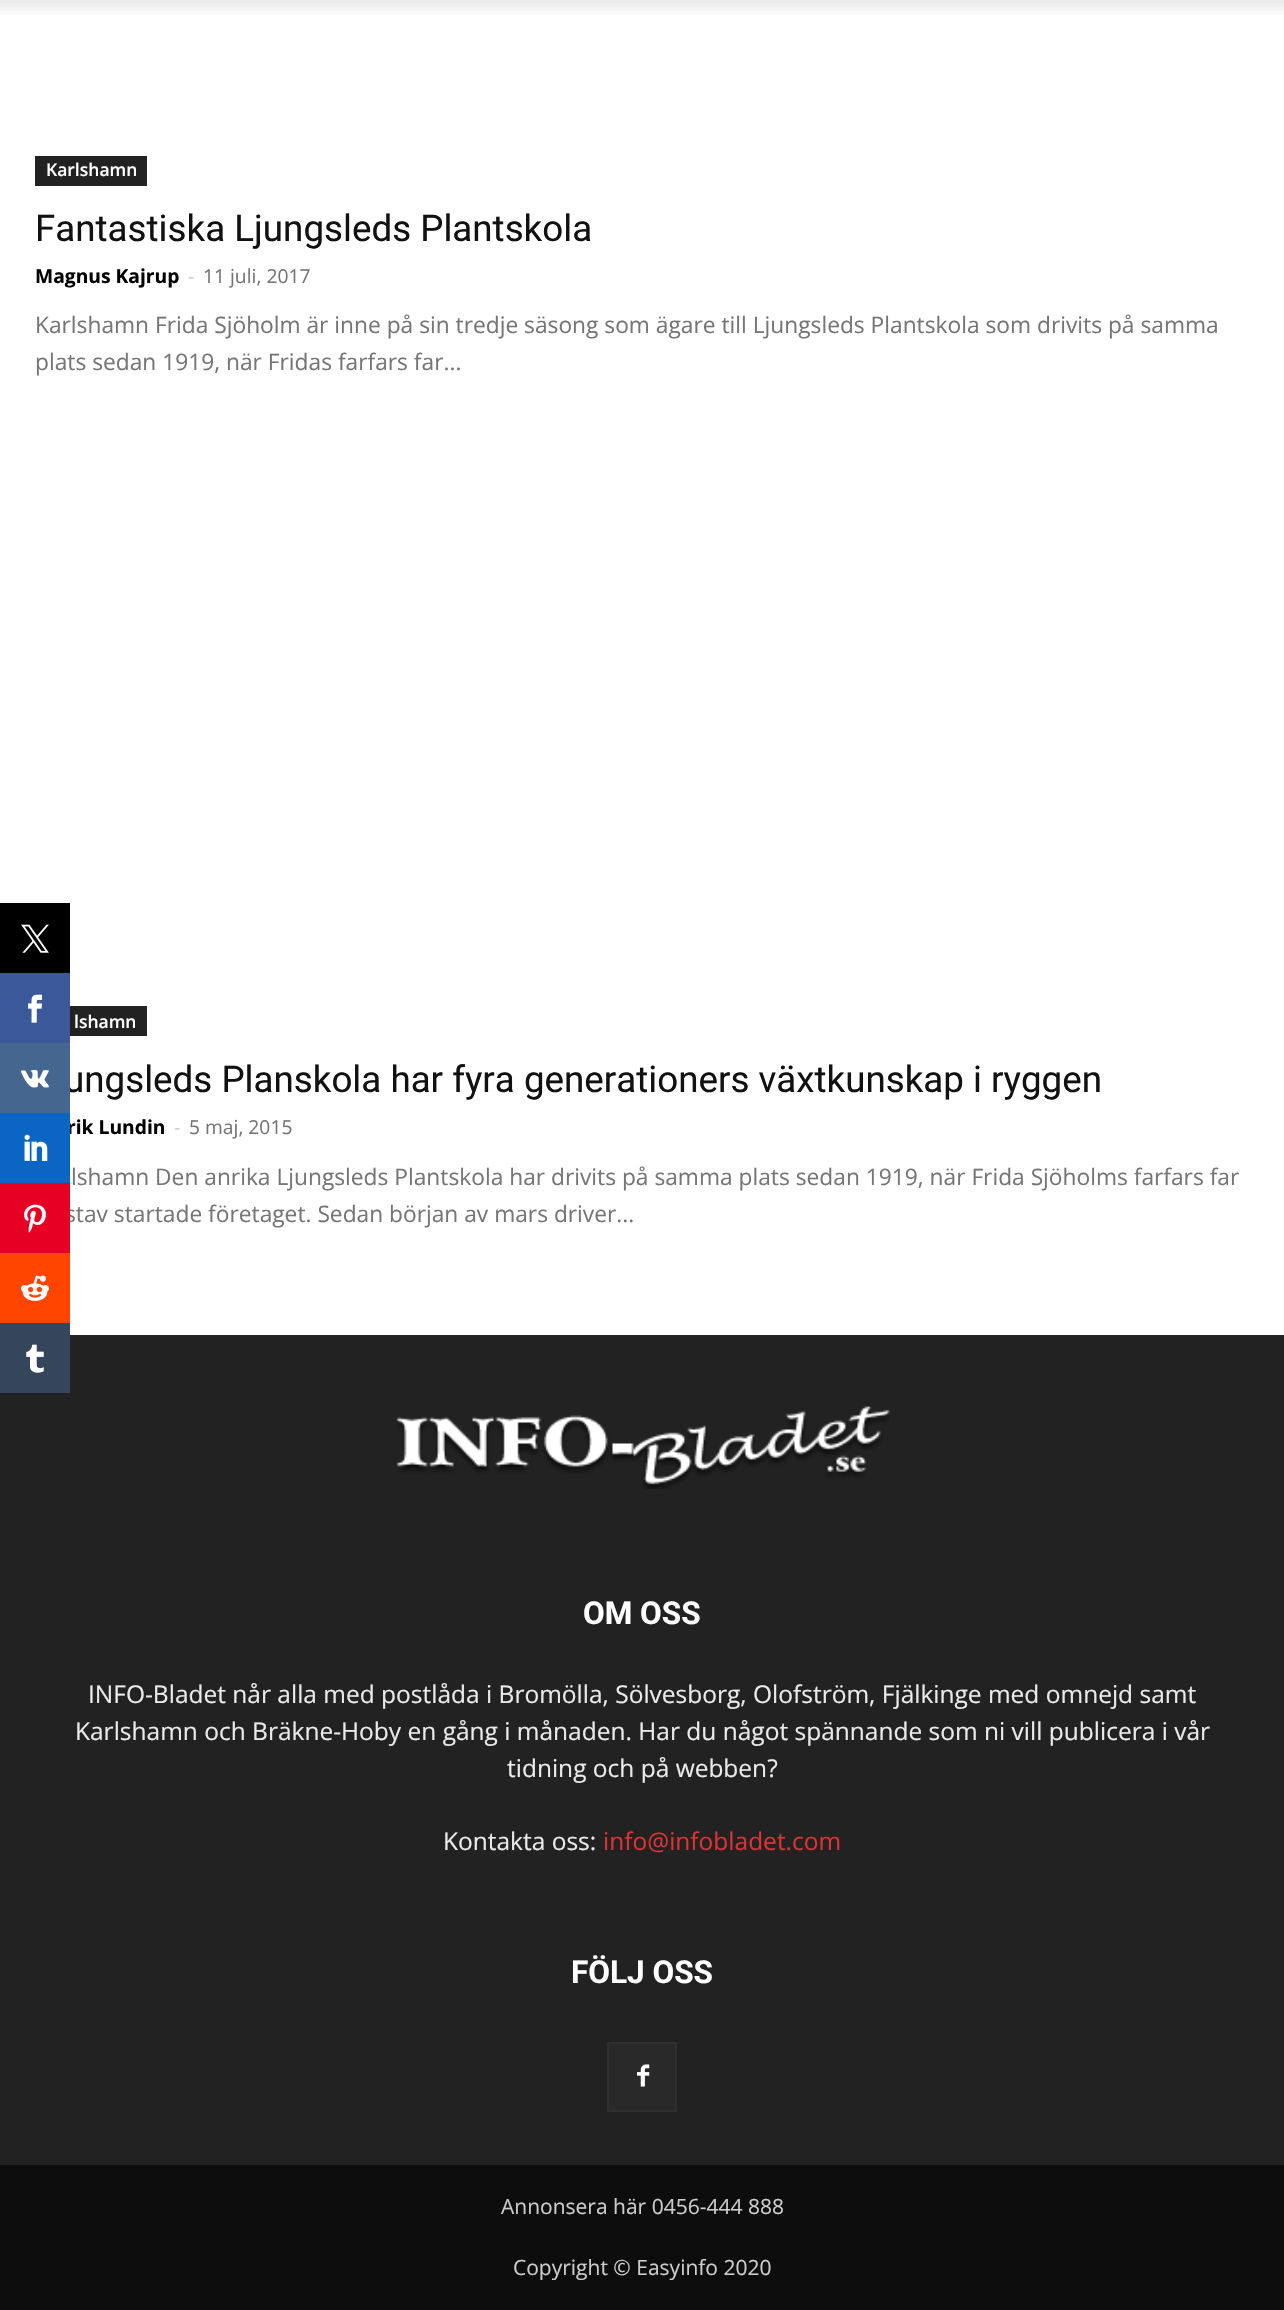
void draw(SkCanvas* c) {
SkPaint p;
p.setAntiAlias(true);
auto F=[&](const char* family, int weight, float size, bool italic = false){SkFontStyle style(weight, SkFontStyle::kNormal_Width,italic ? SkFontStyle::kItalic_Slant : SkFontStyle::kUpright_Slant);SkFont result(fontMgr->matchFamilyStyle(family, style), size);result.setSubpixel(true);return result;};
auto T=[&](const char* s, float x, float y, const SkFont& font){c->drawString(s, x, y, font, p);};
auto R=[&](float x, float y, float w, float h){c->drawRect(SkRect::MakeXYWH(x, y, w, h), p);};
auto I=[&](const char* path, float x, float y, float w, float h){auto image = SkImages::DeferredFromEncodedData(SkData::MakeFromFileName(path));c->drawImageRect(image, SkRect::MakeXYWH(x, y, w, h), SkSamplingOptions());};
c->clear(0xffffffff);
p.setColor(0xff000000);
R(0,903,70,70);
I("1.png",21,924,28,29);
p.setColor(0xff3b5998);
R(0,973,70,70);
I("2.png",28,994,15,29);
auto f1 = F("Roboto",400,36.75);
p.setColor(0xff111111);
T("ungsleds Planskola har fyra generationers växtkunskap i ryggen",64,1092,f1);
p.setColor(0xff45668e);
R(0,1043,70,70);
I("3.png",21,1069,28,19);
auto f2 = F("Open Sans",700,19.25);
p.setColor(0xff000000);
T("rik Lundin",67,1134,f2);
p.setColor(0xff0a66c2);
R(0,1113,70,70);
I("4.png",24,1134,24,27);
auto f3 = F("Open Sans",400,22.75);
p.setColor(0xff767676);
T("stav startade företaget. Sedan början av mars driver...",65,1222,f3);
p.setColor(0xffe60023);
R(0,1183,70,70);
I("5.png",24,1204,22,29);
p.setColor(0xffff4500);
R(0,1253,70,70);
I("6.png",21,1275,28,26);
p.setColor(0xff222222);
R(0,1335,1284,830);
p.setColor(0xff35465c);
R(0,1323,70,70);
I("7.png",26,1344,18,29);
I("8.png",0,0,1284,15);
p.setColor(0xff222222);
R(35,156,112,30);
auto f4 = F("Open Sans",600,17.5);
p.setColor(0xffffffff);
T("Karlshamn",46,176,f4);
p.setColor(0xff111111);
T("Fantastiska Ljungsleds Plantskola",35,241,f1);
p.setColor(0xff000000);
T("Magnus Kajrup",35,283,f2);
auto f5 = F("Open Sans",400,19.25);
p.setColor(0xffcccccc);
T("-",188,283,f5);
p.setColor(0xff767676);
T("11 juli, 2017",203,283,f5);
T("Karlshamn Frida Sjöholm är inne på sin tredje säsong som ägare till Ljungsleds Plantskola som drivits på samma",35,333,f3);
T("plats sedan 1919, när Fridas farfars far...",35,370,f3);
p.setColor(0xff222222);
R(70,1006,77,30);
p.setColor(0xffffffff);
T("lshamn",74,1028,f4);
p.setColor(0xffcccccc);
T("-",174,1134,f5);
p.setColor(0xff767676);
T("5 maj, 2015",189,1134,f5);
T("lshamn Den anrika Ljungsleds Plantskola har drivits på samma plats sedan 1919, när Frida Sjöholms farfars far",71,1185,f3);
I("9.png",396,1406,494,83);
auto f6 = F("Roboto",700,31.5);
p.setColor(0xffffffff);
T("OM OSS",583,1624,f6);
auto f7 = F("Open Sans",400,24.5);
p.setColor(0xffeaeaea);
T("INFO-Bladet når alla med postlåda i Bromölla, Sölvesborg, Olofström, Fjälkinge med omnejd samt",88,1703,f7);
T("Karlshamn och Bräkne-Hoby en gång i månaden. Har du något spännande som ni vill publicera i vår",75,1740,f7);
T("tidning och på webben?",507,1777,f7);
T("Kontakta oss:",443,1850,f7);
p.setColor(0xffdd3333);
T("info@infobladet.com",603,1850,f7);
p.setColor(0xffffffff);
T("FÖLJ OSS",571,1983,f6);
p.setColor(0xff292929);
R(609,2044,66,66);
I("10.png",637,2064,13,23);
p.setStroke(true);
p.setStrokeWidth(2);
p.setColor(0xff2f2f2f);
c->drawRect(SkRect::MakeXYWH(608,2043,68,68),p);
p.setStroke(false);
p.setColor(0xff0d0d0d);
R(0,2165,1284,145);
auto f8 = F("Open Sans",400,21);
p.setColor(0xffcccccc);
T("Annonsera här 0456-444 888",501,2214,f8);
T("Copyright © Easyinfo 2020",513,2275,f8);
}
